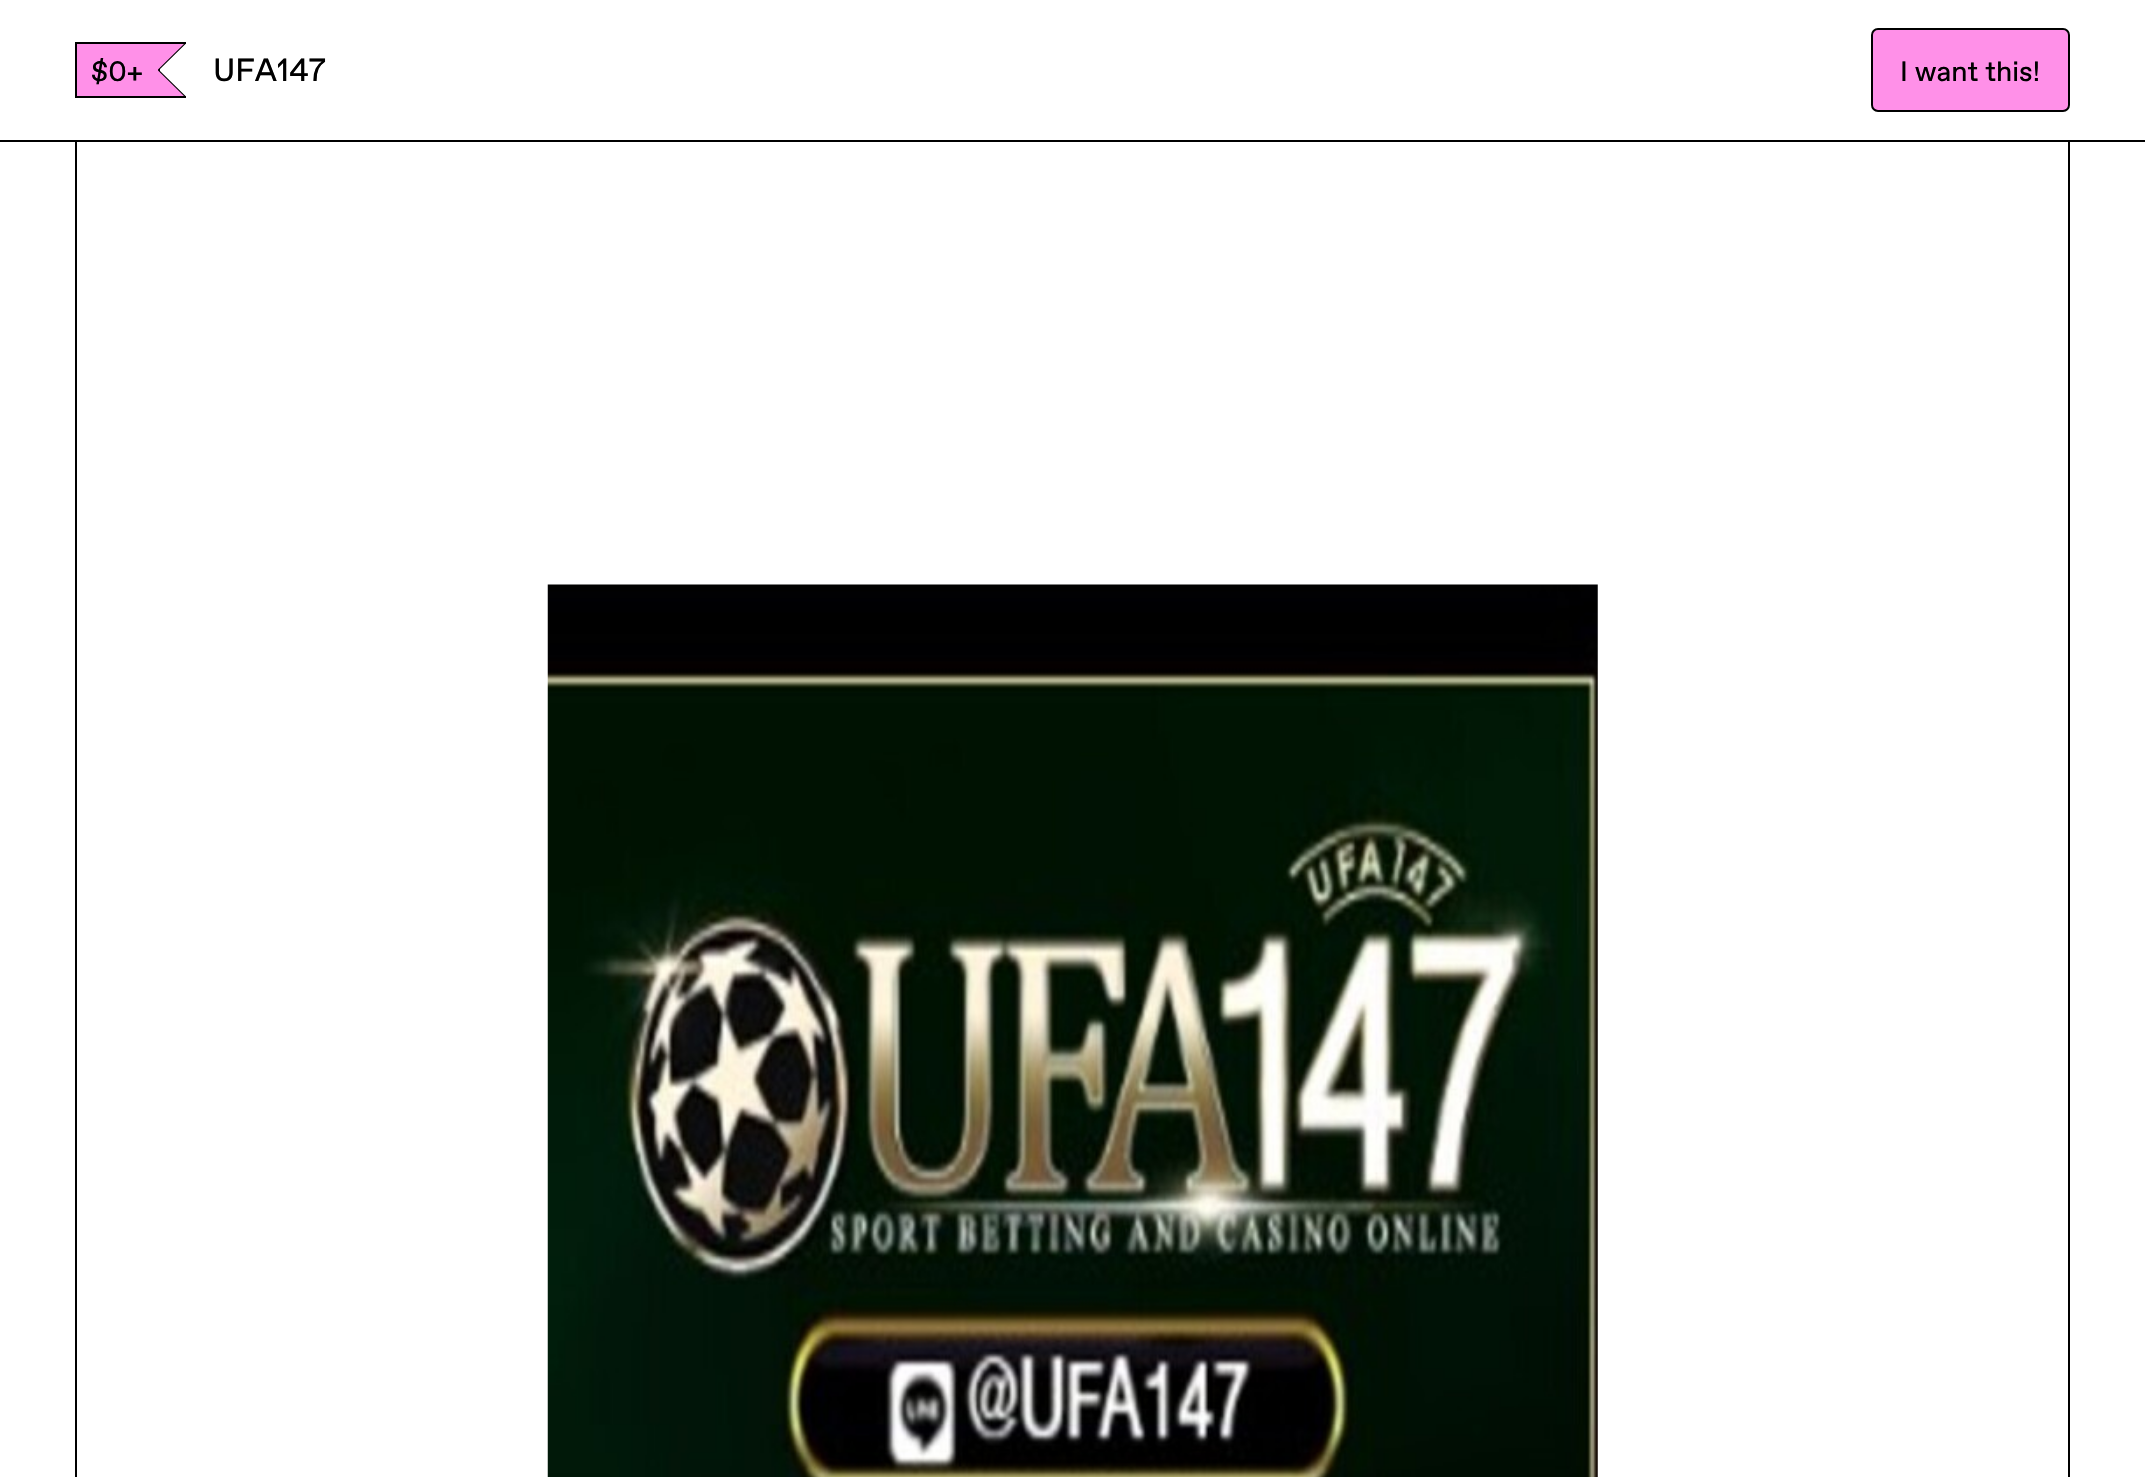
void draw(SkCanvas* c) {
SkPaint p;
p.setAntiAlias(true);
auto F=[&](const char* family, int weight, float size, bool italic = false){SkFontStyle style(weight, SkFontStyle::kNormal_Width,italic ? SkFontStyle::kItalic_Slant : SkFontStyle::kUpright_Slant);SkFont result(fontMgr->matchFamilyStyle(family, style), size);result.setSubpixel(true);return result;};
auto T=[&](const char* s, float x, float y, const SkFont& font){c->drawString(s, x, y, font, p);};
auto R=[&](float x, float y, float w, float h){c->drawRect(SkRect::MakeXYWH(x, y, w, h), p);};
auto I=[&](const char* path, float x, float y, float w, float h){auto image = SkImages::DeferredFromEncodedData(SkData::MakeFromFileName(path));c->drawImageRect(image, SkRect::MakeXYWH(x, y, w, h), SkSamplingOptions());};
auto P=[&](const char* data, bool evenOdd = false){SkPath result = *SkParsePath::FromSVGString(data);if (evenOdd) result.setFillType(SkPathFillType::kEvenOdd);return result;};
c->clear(0xffffffff);
p.setStroke(true);
p.setStrokeWidth(2);
p.setColor(0xff000000);
c->drawRect(SkRect::MakeXYWH(76,113,1993,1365),p);
p.setStroke(false);
c->drawPath(P("M0 140v2h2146v-140v138z"),p);
p.setColor(0xffffffff);
R(75,112,1995,28);
p.setColor(0xff000000);
R(75,42,111,2);
R(75,96,111,2);
R(75,42,2,56);
p.setColor(0xffff90e8);
R(77,44,81,52);
p.setColor(0xff000000);
c->drawPath(P("M157.5 44h28l-26.5 26zm28 52h-28l1.5-26z"),p);
R(158,67,2,6);
p.setColor(0xffff90e8);
c->drawPath(P("M156 44h28l-26.5 26zm28 52h-28l1.5-26z"),p);
auto f1 = F("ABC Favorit",400,28);
p.setColor(0xff000000);
T("$0+",91,81,f1);
auto f2 = F("ABC Favorit",400,32);
T("UFA147",213,81,f2);
p.setColor(0xffff90e8);
c->drawRoundRect(SkRect::MakeXYWH(1872,29,197,82),6,6,p);
p.setStroke(true);
p.setColor(0xff000000);
c->drawRoundRect(SkRect::MakeXYWH(1872,29,197,82),6,6,p);
p.setStroke(false);
T("I want this!",1900,81,f1);
I("1.png",547,584,1051,893);
}
